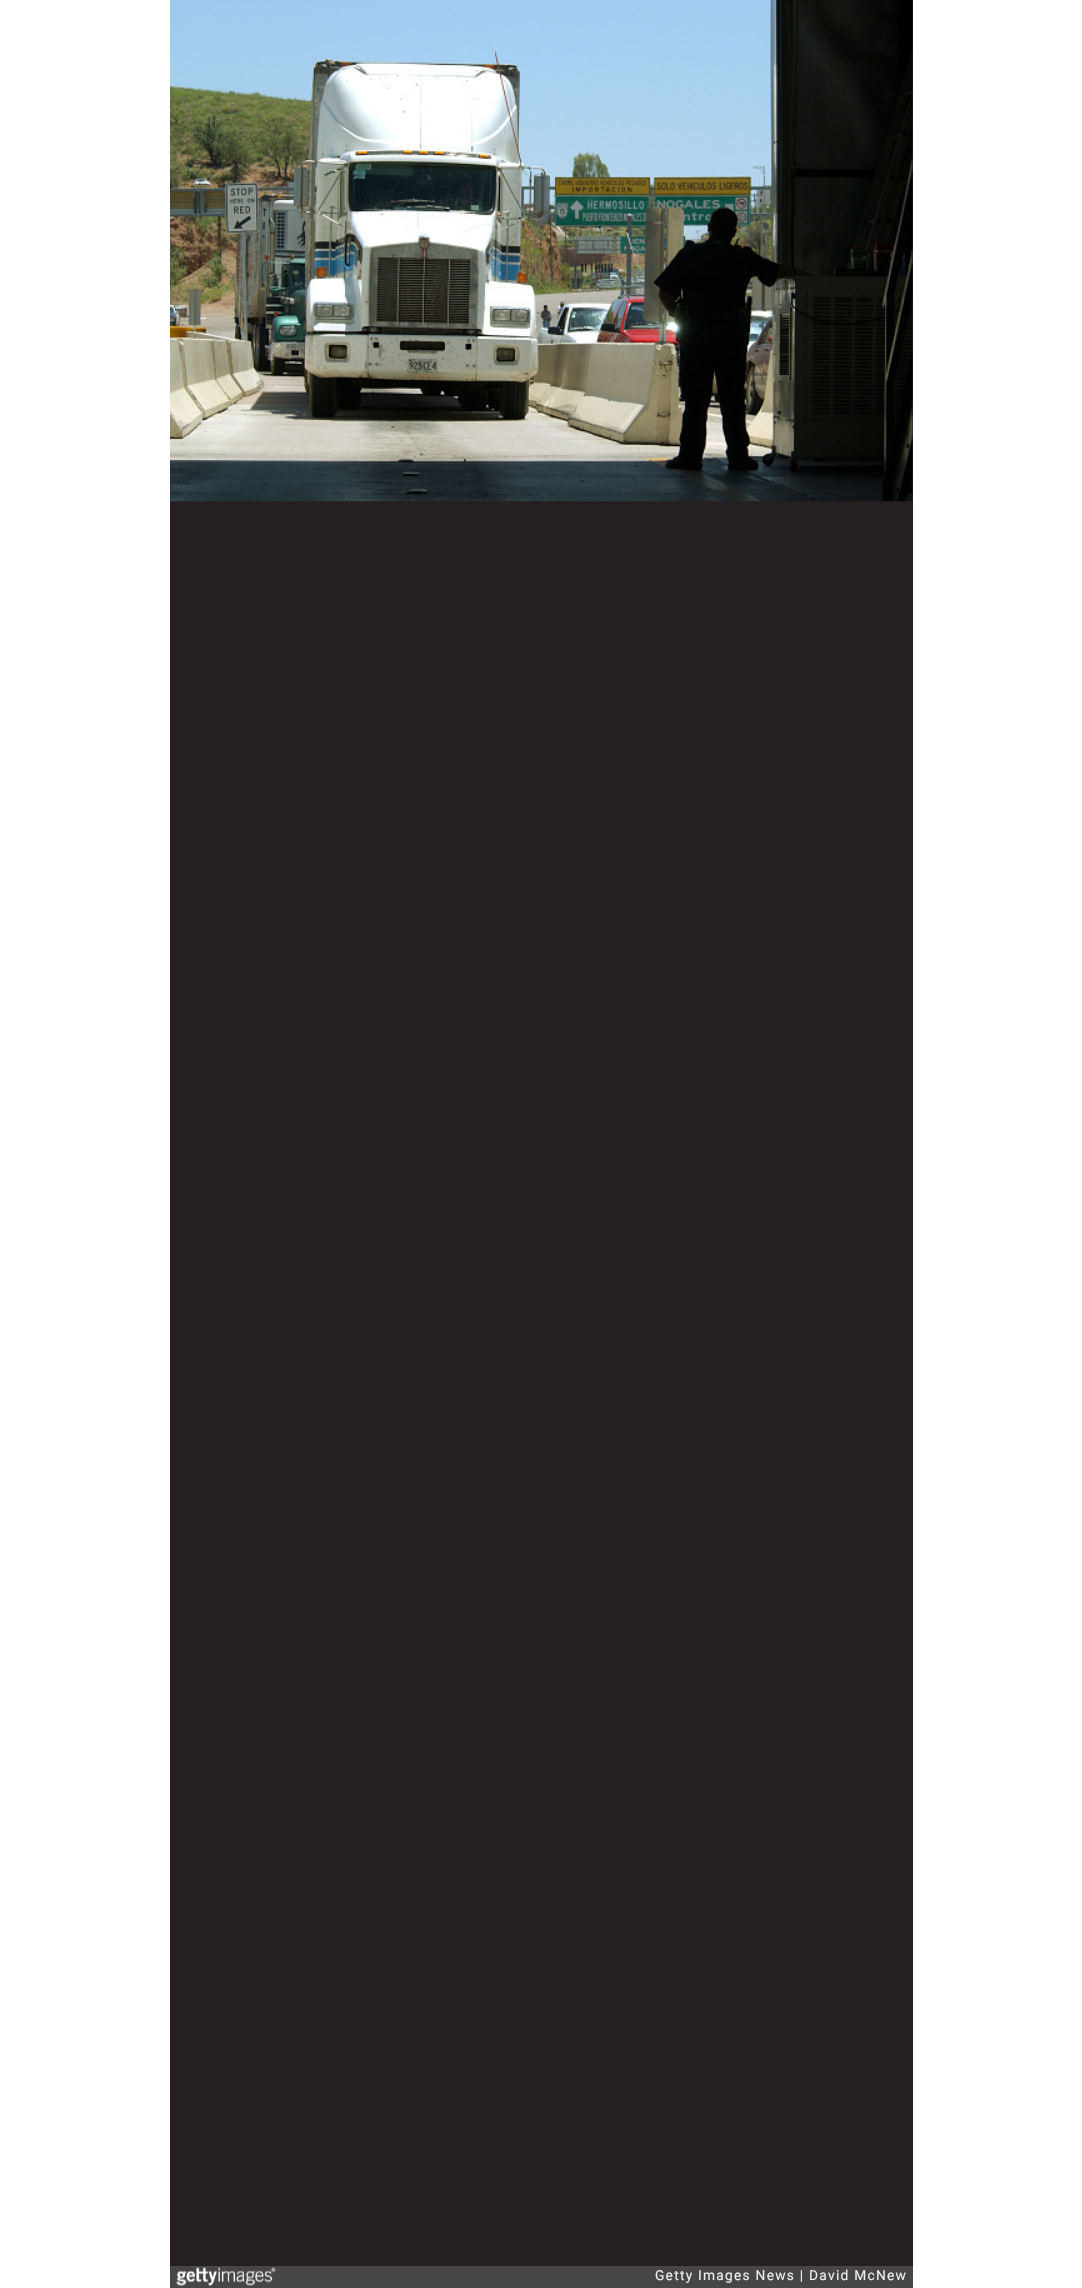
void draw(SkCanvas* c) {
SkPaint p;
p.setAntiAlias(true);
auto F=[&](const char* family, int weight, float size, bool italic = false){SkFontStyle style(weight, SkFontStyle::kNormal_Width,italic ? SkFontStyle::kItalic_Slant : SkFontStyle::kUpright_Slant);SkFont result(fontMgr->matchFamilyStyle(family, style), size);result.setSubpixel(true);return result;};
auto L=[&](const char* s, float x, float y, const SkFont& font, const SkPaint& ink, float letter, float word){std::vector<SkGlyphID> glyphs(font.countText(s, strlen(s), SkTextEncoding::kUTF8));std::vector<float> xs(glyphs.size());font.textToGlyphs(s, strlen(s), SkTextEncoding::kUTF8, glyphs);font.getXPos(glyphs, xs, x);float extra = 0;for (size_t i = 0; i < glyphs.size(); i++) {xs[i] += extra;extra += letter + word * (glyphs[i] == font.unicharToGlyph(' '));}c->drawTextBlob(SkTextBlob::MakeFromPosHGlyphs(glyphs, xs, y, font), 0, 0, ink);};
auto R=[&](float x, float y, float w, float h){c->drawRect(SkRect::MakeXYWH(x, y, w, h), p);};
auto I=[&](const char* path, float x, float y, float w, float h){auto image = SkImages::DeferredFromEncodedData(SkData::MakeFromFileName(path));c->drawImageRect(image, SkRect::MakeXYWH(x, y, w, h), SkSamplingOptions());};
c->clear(0xffffffff);
p.setColor(0xff251f20);
R(170,0,743,2266);
I("1.png",170,0,743,502);
p.setColor(0xff474545);
R(170,2266,743,22);
I("2.png",176,2267,100,19);
auto f1 = F("Roboto",400,13.75);
p.setColor(0xffeeeeee);
L("Getty Images News | David McNew",655,2280,f1,p,1.25,0);
}
